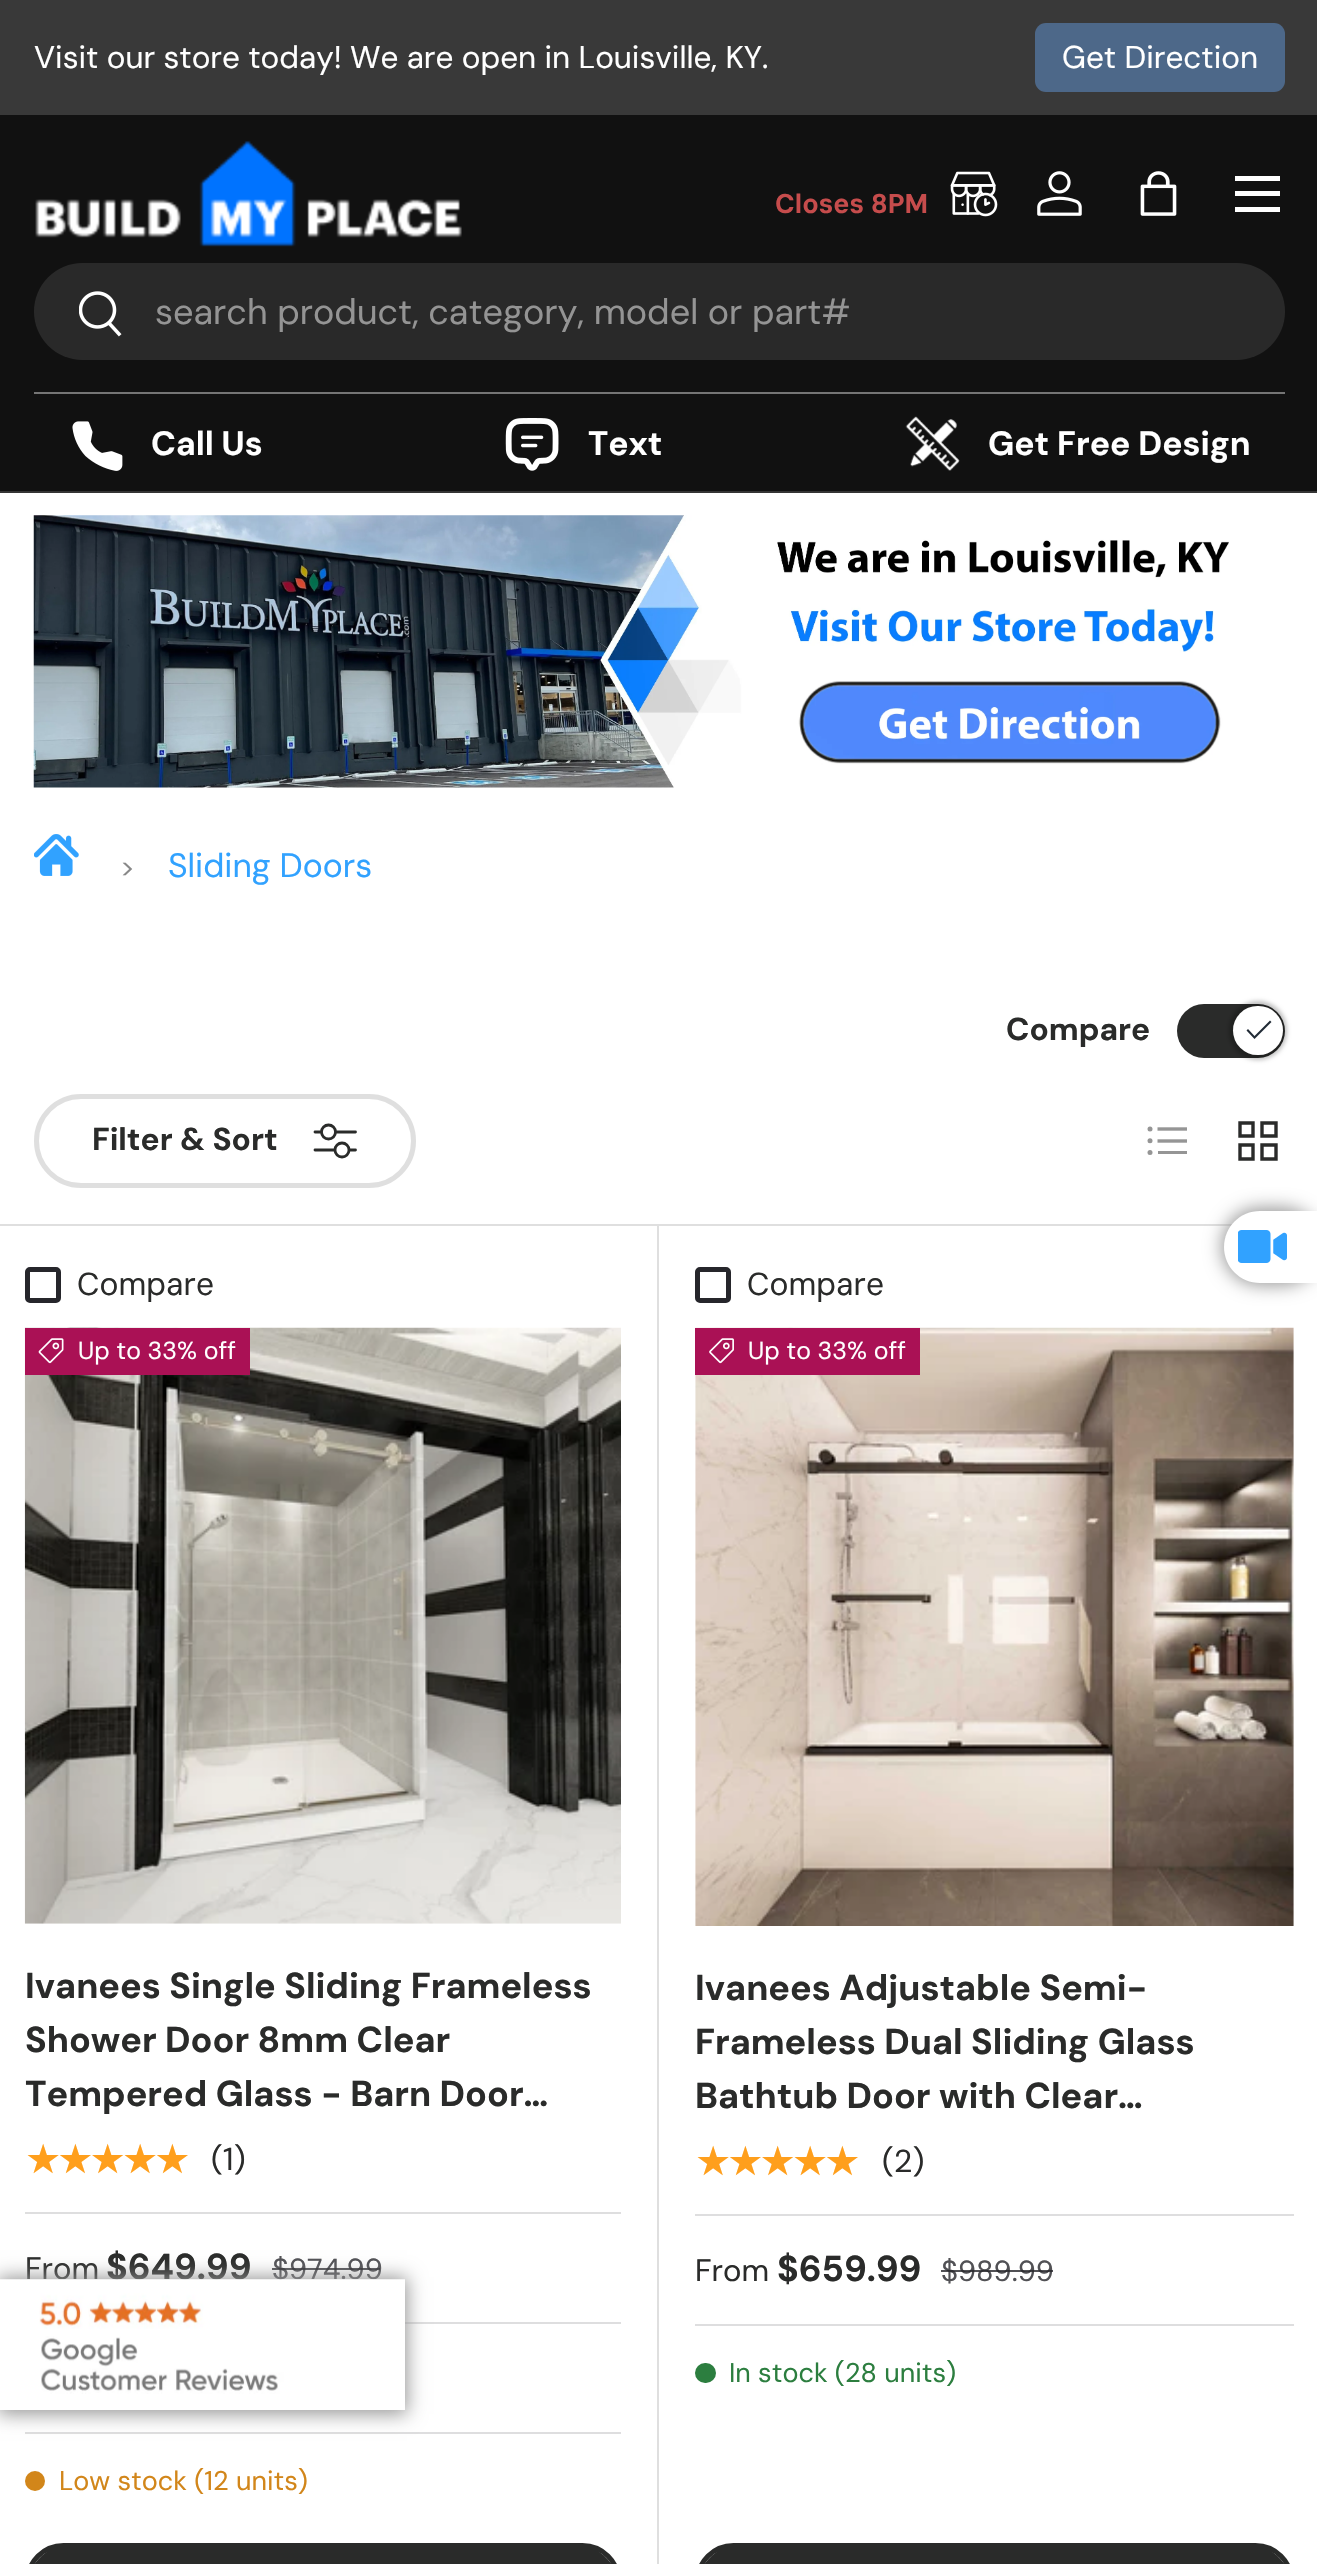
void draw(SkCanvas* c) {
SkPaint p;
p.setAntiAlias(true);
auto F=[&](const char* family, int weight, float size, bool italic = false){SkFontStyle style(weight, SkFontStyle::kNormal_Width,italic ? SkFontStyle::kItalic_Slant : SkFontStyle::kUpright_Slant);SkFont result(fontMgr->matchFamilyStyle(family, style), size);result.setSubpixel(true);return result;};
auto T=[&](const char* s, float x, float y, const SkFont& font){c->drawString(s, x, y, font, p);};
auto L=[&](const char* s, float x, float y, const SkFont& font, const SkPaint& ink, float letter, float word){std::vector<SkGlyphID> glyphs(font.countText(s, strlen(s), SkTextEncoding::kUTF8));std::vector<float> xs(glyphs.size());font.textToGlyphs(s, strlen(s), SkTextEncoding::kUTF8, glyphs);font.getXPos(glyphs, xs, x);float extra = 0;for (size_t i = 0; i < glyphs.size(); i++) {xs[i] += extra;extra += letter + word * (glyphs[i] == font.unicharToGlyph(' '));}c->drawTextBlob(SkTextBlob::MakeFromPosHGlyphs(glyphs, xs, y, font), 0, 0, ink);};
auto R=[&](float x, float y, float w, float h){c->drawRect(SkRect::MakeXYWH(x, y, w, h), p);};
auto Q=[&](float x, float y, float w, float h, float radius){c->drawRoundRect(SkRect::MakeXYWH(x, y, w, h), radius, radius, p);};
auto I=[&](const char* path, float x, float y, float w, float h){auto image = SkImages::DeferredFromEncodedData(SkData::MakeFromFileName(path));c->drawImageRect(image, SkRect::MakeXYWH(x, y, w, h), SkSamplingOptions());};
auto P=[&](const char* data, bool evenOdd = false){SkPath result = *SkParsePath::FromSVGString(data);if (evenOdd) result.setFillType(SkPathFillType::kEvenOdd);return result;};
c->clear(0xffffffff);
p.setColor(0xff111111);
R(0,115,1317,376);
p.setColor(0xff353535);
R(0,491,1317,2);
p.setColor(0xff393939);
R(0,0,1317,115);
auto f1 = F("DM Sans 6",400,31.5);
p.setColor(0xffffffff);
T("Visit our store today! We are open in Louisville, KY.",34,68,f1);
p.setColor(0xff4d6889);
Q(1035,23,250,69,11);
p.setColor(0xffffffff);
T("Get Direction",1062,68,f1);
I("1.png",35,141,427,106);
auto f2 = F("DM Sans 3",700,27);
p.setColor(0xffc64c4c);
T("Closes 8PM",775,213,f2);
I("2.png",950,171,48,46);
I("3.png",1037,171,45,45);
I("4.png",1140,171,37,45);
p.setColor(0xffffffff);
R(1235,176,45,5);
R(1235,207,45,5);
R(1235,191,45,5);
p.setColor(0xff292929);
Q(34,263,1251,97,48.5);
I("5.png",79,291,43,46);
auto f3 = F("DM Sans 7",400,36);
p.setColor(0xff949494);
T("search product, category, model or part#",155,324,f3);
p.setColor(0xff757575);
R(34,392,1251,2);
I("6.png",72,421,51,50);
auto f4 = F("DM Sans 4",700,33.75);
p.setColor(0xffffffff);
T("Call Us",151,455,f4);
I("7.png",505,418,54,53);
T("Text",588,455,f4);
I("8.png",905,416,55,55);
T("Get Free Design",988,455,f4);
I("9.png",33,515,1196,273);
I("10.png",34,834,45,42);
auto f5 = F("DM Sans",400,27);
p.setColor(0xff888888);
T(">",120,877,f5);
auto f6 = F("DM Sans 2",400,33.75);
p.setColor(0xff31a2ff);
T("Sliding Doors",168,877,f6);
p.setColor(0xff2a2b2a);
Q(1177,1004,108,54,27);
p.setColor(0x40000000);
p.setMaskFilter(SkMaskFilter::MakeBlur(kNormal_SkBlurStyle, 2));
c->drawRoundRect(SkRect::MakeXYWH(1229,1001,58,59),29,29,p);
p.setMaskFilter(nullptr);
p.setColor(0xffffffff);
Q(1233,1006,50,49,24.5);
p.setColor(0xff212b36);
c->drawPath(P("M1270 1020.5l1.5 1.5l-17 17l-8-8.5l1.5-1.5l6.5 7z",true),p);
auto f7 = F("DM Sans",700,31.75);
p.setColor(0xff2a2b2a);
T("Compare",1006,1040,f7);
p.setStroke(true);
p.setStrokeWidth(5);
p.setColor(0xffdfdfdf);
c->drawRoundRect(SkRect::MakeXYWH(36.5,1096.5,377,89),44.5,44.5,p);
p.setStroke(false);
p.setColor(0xff2a2b2a);
T("Filter & Sort",92,1150,f7);
p.setStroke(true);
p.setStrokeWidth(2.8);
p.setStrokeCap(SkPaint::kRound_Cap);
p.setStrokeJoin(SkPaint::kRound_Join);
c->drawPath(P("M315 1132h40.5m-40.5 18h40.5"),p);
p.setStroke(false);
p.setColor(0xffffffff);
c->drawCircle(328.5,1132,7,p);
p.setStroke(true);
p.setStrokeCap(SkPaint::kButt_Cap);
p.setStrokeJoin(SkPaint::kMiter_Join);
p.setColor(0xff2a2b2a);
c->drawCircle(328.5,1132,7,p);
p.setStroke(false);
p.setColor(0xffffffff);
c->drawCircle(342,1150,7,p);
p.setStroke(true);
p.setColor(0xff2a2b2a);
c->drawCircle(342,1150,7,p);
p.setStroke(false);
p.setColor(0xff959595);
c->drawCircle(1150,1129.1,2.5,p);
p.setStroke(true);
p.setStrokeWidth(3.4);
c->drawPath(P("M1157.5 1129h29.5"),p);
p.setStroke(false);
c->drawCircle(1150,1140.8,2.5,p);
p.setStroke(true);
c->drawPath(P("M1157.5 1141h29.5"),p);
p.setStroke(false);
c->drawCircle(1150,1152.4,2.5,p);
R(1158,1151,29,3);
p.setStroke(true);
p.setColor(0xff2a2b2a);
c->drawPath(P("M1240 1123h13v13h-13zm22 0h14v13h-14zm-22 22h13v14h-13zm22 0h14v14h-14z"),p);
p.setStroke(false);
p.setColor(0xffdfdfdf);
R(0,1224,1233,2);
c->drawPath(P("M659 1226v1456l-2-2v-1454z"),p);
p.setStroke(true);
p.setStrokeWidth(5);
p.setColor(0xff26262b);
c->drawRoundRect(SkRect::MakeXYWH(27.5,1269.5,31,31),2.5,2.5,p);
auto f8 = F("DM Sans",400,31.75);
p.setStroke(false);
p.setColor(0xff2a2b2a);
T("Compare",77,1295,f8);
I("11.png",24,1327,597,597);
p.setColor(0xffaa1155);
R(25,1328,225,47);
I("12.png",38,1338,26,26);
auto f9 = F("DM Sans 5",400,24.75);
p.setColor(0xffffffff);
T("Up to 33% off",78,1359,f9);
auto f10 = F("DM Sans 2",700,36);
p.setColor(0xff2a2b2a);
T("Ivanees Single Sliding Frameless",25,1998,f10);
T("Shower Door 8mm Clear",25,2052,f10);
T("Tempered Glass - Barn Door…",25,2106,f10);
auto f11 = F("DejaVu Sans",400,40.5);
{
const SkColor colors[] = {0xffff9f1c,0xffffecd2};
const float stops[] = {1,1};
const SkPoint ends[] = {{25,2160}, {188,2160}};
p.setShader(SkGradientShader::MakeLinear(ends, colors, stops, 2, SkTileMode::kClamp));
p.setAlpha(255);
}
L("★★★★★",25,2173,f11,p,-4,0);
p.setShader(nullptr);
p.setColor(0xff2a2b2a);
T("(1)",211,2170,f8);
p.setColor(0xffdededf);
R(25,2212,596,2);
auto f12 = F("DM Sans 3",400,31);
p.setColor(0xff2a2b2a);
T("From",25,2279,f12);
T("$649.99",106,2279,f10);
auto f13 = F("DM Sans",400,29);
p.setColor(0xff515155);
T("$974.99",272,2279,f13);
p.setColor(0xcc26262b);
R(272,2268,108,2);
p.setColor(0xffdededf);
R(405,2322,216,2);
R(25,2432,596,2);
p.setColor(0xffd2861a);
c->drawCircle(35,2481,10,p);
auto f14 = F("DM Sans 4",400,27);
T("Low stock (12 units)",59,2490,f14);
c->save();
c->clipPath(P("M75.5 2543h495c28 0 50.5 22.5 50.5 50.5c0 28-22.5 50.5-50.5 50.5h-495c-28 0-50.5-22.5-50.5-50.5c0-28 22.5-50.5 50.5-50.5z"),true);
{
const SkColor colors[] = {0xff525352,0xff2a2b2a,0xff2a2b2a};
const float stops[] = {.6,.6,1};
const SkPoint ends[] = {{-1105,2384}, {576,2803}};
p.setShader(SkGradientShader::MakeLinear(ends, colors, stops, 3, SkTileMode::kClamp));
p.setAlpha(255);
}
R(34,2547,578,17);
c->restore();
p.setStroke(true);
p.setShader(nullptr);
p.setColor(0xff2a2b2a);
c->drawRoundRect(SkRect::MakeXYWH(27.5,2545.5,591,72),48,48,p);
p.setColor(0xff26262b);
c->drawRoundRect(SkRect::MakeXYWH(697.5,1269.5,31,31),2.5,2.5,p);
p.setStroke(false);
p.setColor(0xff2a2b2a);
T("Compare",747,1295,f8);
I("13.png",695,1327,599,599);
p.setColor(0xffaa1155);
R(695,1328,225,47);
I("14.png",709,1338,25,26);
p.setColor(0xffffffff);
T("Up to 33% off",748,1359,f9);
p.setColor(0xff2a2b2a);
T("Ivanees Adjustable Semi-",695,2000,f10);
T("Frameless Dual Sliding Glass",695,2054,f10);
T("Bathtub Door with Clear…",695,2108,f10);
{
const SkColor colors[] = {0xffff9f1c,0xffffecd2};
const float stops[] = {1,1};
const SkPoint ends[] = {{695,2162}, {858,2162}};
p.setShader(SkGradientShader::MakeLinear(ends, colors, stops, 2, SkTileMode::kClamp));
p.setAlpha(255);
}
L("★★★★★",695,2175,f11,p,-4,0);
p.setShader(nullptr);
p.setColor(0xff2a2b2a);
T("(2)",882,2172,f8);
p.setColor(0xffdededf);
R(695,2214,599,2);
p.setColor(0xff2a2b2a);
T("From",695,2281,f12);
T("$659.99",777,2281,f10);
p.setColor(0xff515155);
T("$989.99",941,2281,f13);
p.setColor(0xcc26262b);
R(941,2270,112,2);
p.setColor(0xffdededf);
R(695,2324,599,2);
p.setColor(0xff2c7e3f);
Q(695,2363,21,20,10);
T("In stock (28 units)",729,2382,f14);
c->save();
c->clipPath(P("M745.5 2543h498c28 0 50.5 22.5 50.5 50.5c0 28-22.5 50.5-50.5 50.5h-498c-28 0-50.5-22.5-50.5-50.5c0-28 22.5-50.5 50.5-50.5z"),true);
{
const SkColor colors[] = {0xff525352,0xff2a2b2a,0xff2a2b2a};
const float stops[] = {.6,.6,1};
const SkPoint ends[] = {{-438,2383}, {1248,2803}};
p.setShader(SkGradientShader::MakeLinear(ends, colors, stops, 3, SkTileMode::kClamp));
p.setAlpha(255);
}
R(704,2547,581,17);
c->restore();
p.setStroke(true);
p.setShader(nullptr);
p.setColor(0xff2a2b2a);
c->drawRoundRect(SkRect::MakeXYWH(697.5,2545.5,594,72),48,48,p);
p.setStroke(false);
p.setColor(0xff969696);
p.setMaskFilter(SkMaskFilter::MakeBlur(kNormal_SkBlurStyle, 9));
c->drawRoundRect(SkRect::MakeXYWH(1222,1208,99,77),38.5,38.5,p);
p.setMaskFilter(nullptr);
p.setColor(0xffffffff);
c->drawPath(P("M1260 1211h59v72h-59c-20 0-36-16-36-36c0-20 16-36 36-36z"),p);
I("15.png",1238,1230,49,33);
p.setColor(0xff969696);
p.setMaskFilter(SkMaskFilter::MakeBlur(kNormal_SkBlurStyle, 9));
c->drawRect(SkRect::MakeXYWH(-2,2277,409,137),p);
p.setMaskFilter(nullptr);
I("16.png",0,2279,405,131);
}
